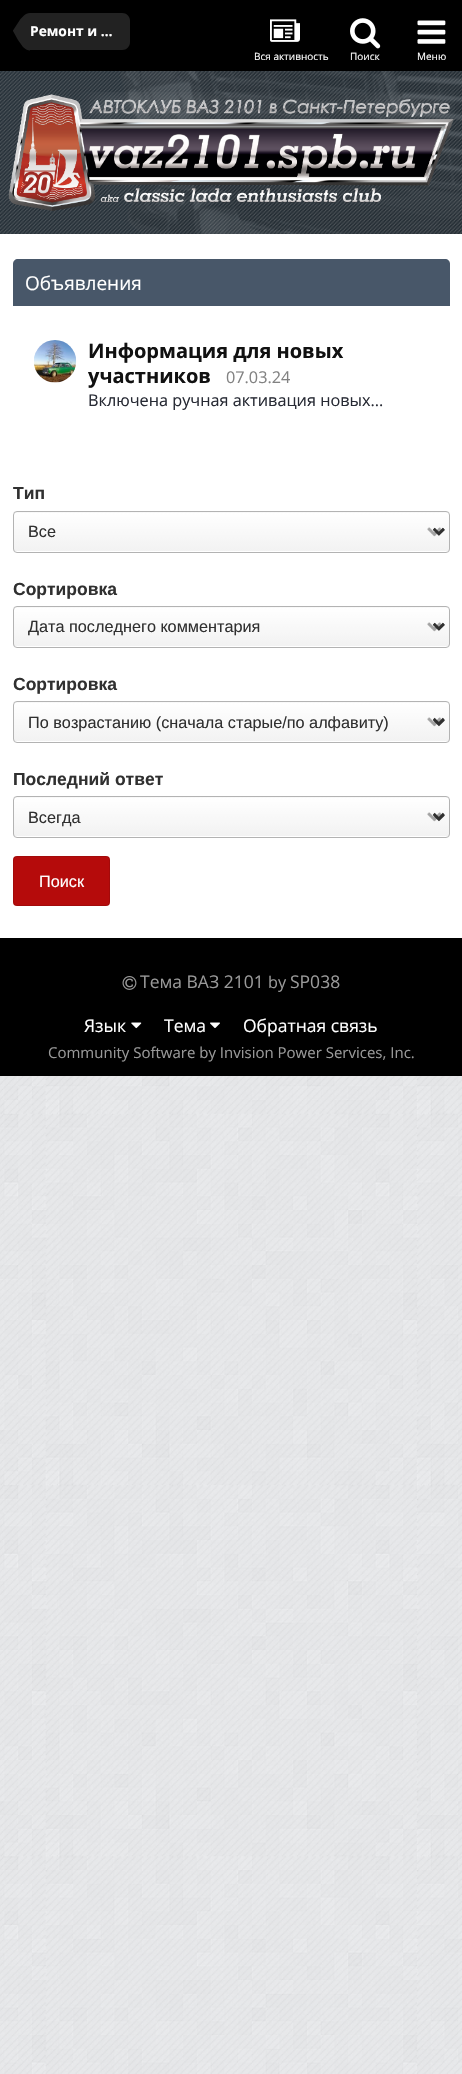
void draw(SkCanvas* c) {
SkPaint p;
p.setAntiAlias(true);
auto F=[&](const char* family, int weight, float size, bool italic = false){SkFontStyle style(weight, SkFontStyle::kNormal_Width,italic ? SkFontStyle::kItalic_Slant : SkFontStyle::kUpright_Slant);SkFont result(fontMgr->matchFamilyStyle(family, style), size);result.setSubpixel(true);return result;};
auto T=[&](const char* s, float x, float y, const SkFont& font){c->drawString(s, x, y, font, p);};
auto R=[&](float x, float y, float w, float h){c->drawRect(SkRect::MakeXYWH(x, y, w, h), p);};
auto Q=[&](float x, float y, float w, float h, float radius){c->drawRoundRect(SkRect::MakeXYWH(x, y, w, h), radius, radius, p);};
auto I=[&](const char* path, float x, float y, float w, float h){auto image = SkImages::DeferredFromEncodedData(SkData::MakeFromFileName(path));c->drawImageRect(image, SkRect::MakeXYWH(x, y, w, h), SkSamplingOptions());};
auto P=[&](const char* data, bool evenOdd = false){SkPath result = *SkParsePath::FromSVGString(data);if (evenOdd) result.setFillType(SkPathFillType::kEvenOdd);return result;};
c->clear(0xffebeef2);
I("1.png",0,1076,462,998);
p.setColor(0xff000000);
R(0,0,462,71);
p.setColor(0xff222222);
c->drawPath(P("M30 13h92c4.5 0 8 3.5 8 8v21c0 4.5-3.5 8-8 8h-92z"),p);
c->drawPath(P("M13 31h17v19.5c-2 0-4.5-1-7-3.5l-5-7zm17-18v18h-17v-.5l7.5-11.5l3.5-3.5c1.5-1.5 3.5-2.5 6-2.5z"),p);
auto f1 = F("Open Sans",700,13.75);
p.setColor(0xffffffff);
T("Ремонт и …",30,36,f1);
I("2.png",270,19,30,23);
auto f2 = F("Open Sans",400,10);
T("Вся активность",254,60,f2);
I("3.png",350,18,31,31);
T("Поиск",350,60,f2);
I("4.png",417,20,29,24);
T("Меню",417,60,f2);
p.setColor(0xff19242d);
R(0,71,462,163);
I("5.png",0,71,462,163);
I("6.png",8,92,447,119);
p.setColor(0xffffffff);
R(0,234,462,704);
p.setColor(0xff485769);
c->drawPath(P("M18 259h427c3 0 5 2 5 5v42h-437v-42c0-3 2-5 5-5z"),p);
auto f3 = F("Open Sans",400,19);
p.setColor(0xffffffff);
T("Объявления",25,290,f3);
I("7.png",34,340,43,43);
auto f4 = F("Open Sans",700,20);
p.setColor(0xff111111);
T("Информация для новых",88,358,f4);
T("участников",88,383,f4);
auto f5 = F("Open Sans",400,16.25);
p.setColor(0xff828282);
T("07.03.24",226,383,f5);
p.setColor(0xff272a34);
T("Включена ручная активация новых...",88,406,f5);
auto f6 = F("Liberation Sans",700,17.5);
p.setColor(0xff303030);
T("Тип",13,499,f6);
I("8.png",13,511,437,40);
p.setStroke(true);
p.setStrokeWidth(1);
p.setColor(0xffb3b3b3);
c->drawRoundRect(SkRect::MakeXYWH(13.5,511.5,436,41),3.5,3.5,p);
p.setStrokeWidth(2.5);
p.setColor(0xff303030);
c->drawPath(P("M434 529l5 5l5-5"),p);
auto f7 = F("Liberation Sans",400,16.25);
p.setStroke(false);
T("Все",28,537,f7);
T("Сортировка",13,595,f6);
I("8.png",13,606,437,40);
p.setStroke(true);
p.setStrokeWidth(1);
p.setColor(0xffb3b3b3);
c->drawRoundRect(SkRect::MakeXYWH(13.5,606.5,436,41),3.5,3.5,p);
p.setStrokeWidth(2.5);
p.setColor(0xff303030);
c->drawPath(P("M434 624l5 5l5-5"),p);
c->save();
c->clipRect(SkRect::MakeXYWH(28,616,363,22));
p.setStroke(false);
T("Дата последнего комментария",28,632,f7);
c->restore();
T("Сортировка",13,690,f6);
I("8.png",13,701,437,40);
p.setStroke(true);
p.setStrokeWidth(1);
p.setColor(0xffb3b3b3);
c->drawRoundRect(SkRect::MakeXYWH(13.5,701.5,436,41),3.5,3.5,p);
p.setStrokeWidth(2.5);
p.setColor(0xff303030);
c->drawPath(P("M434 719.5l5 5l5-5"),p);
p.setStroke(false);
T("По возрастанию (сначала старые/по алфавиту)",28,728,f7);
T("Последний ответ",13,785,f6);
I("8.png",13,796,437,40);
p.setStroke(true);
p.setStrokeWidth(1);
p.setColor(0xffb3b3b3);
c->drawRoundRect(SkRect::MakeXYWH(13.5,796.5,436,41),3.5,3.5,p);
p.setStrokeWidth(2.5);
p.setColor(0xff303030);
c->drawPath(P("M434 814.5l5 5l5-5"),p);
p.setStroke(false);
T("Всегда",28,823,f7);
p.setColor(0xffb50b0b);
Q(13,856,97,50,4);
p.setStroke(true);
p.setStrokeWidth(1);
p.setColor(0x1a000000);
c->drawRoundRect(SkRect::MakeXYWH(13.5,856.5,96,49),3.5,3.5,p);
p.setStroke(false);
p.setColor(0xffffffff);
T("Поиск",39,887,f7);
p.setColor(0xff000000);
R(0,938,462,138);
I("9.png",122,976,15,14);
auto f8 = F("Open Sans",400,17.5);
p.setColor(0xff999999);
T("Тема ВАЗ 2101",140,988,f8);
T("by",268,988,f5);
T("SP038",290,988,f8);
p.setColor(0xffffffff);
T("Язык",84,1032,f8);
I("10.png",131,1022,11,7);
T("Тема",164,1032,f8);
I("11.png",210,1022,10,6);
T("Обратная связь",243,1032,f8);
auto f9 = F("Open Sans",400,15);
p.setColor(0xff999999);
T("Community Software by Invision Power Services, Inc.",48,1058,f9);
}
